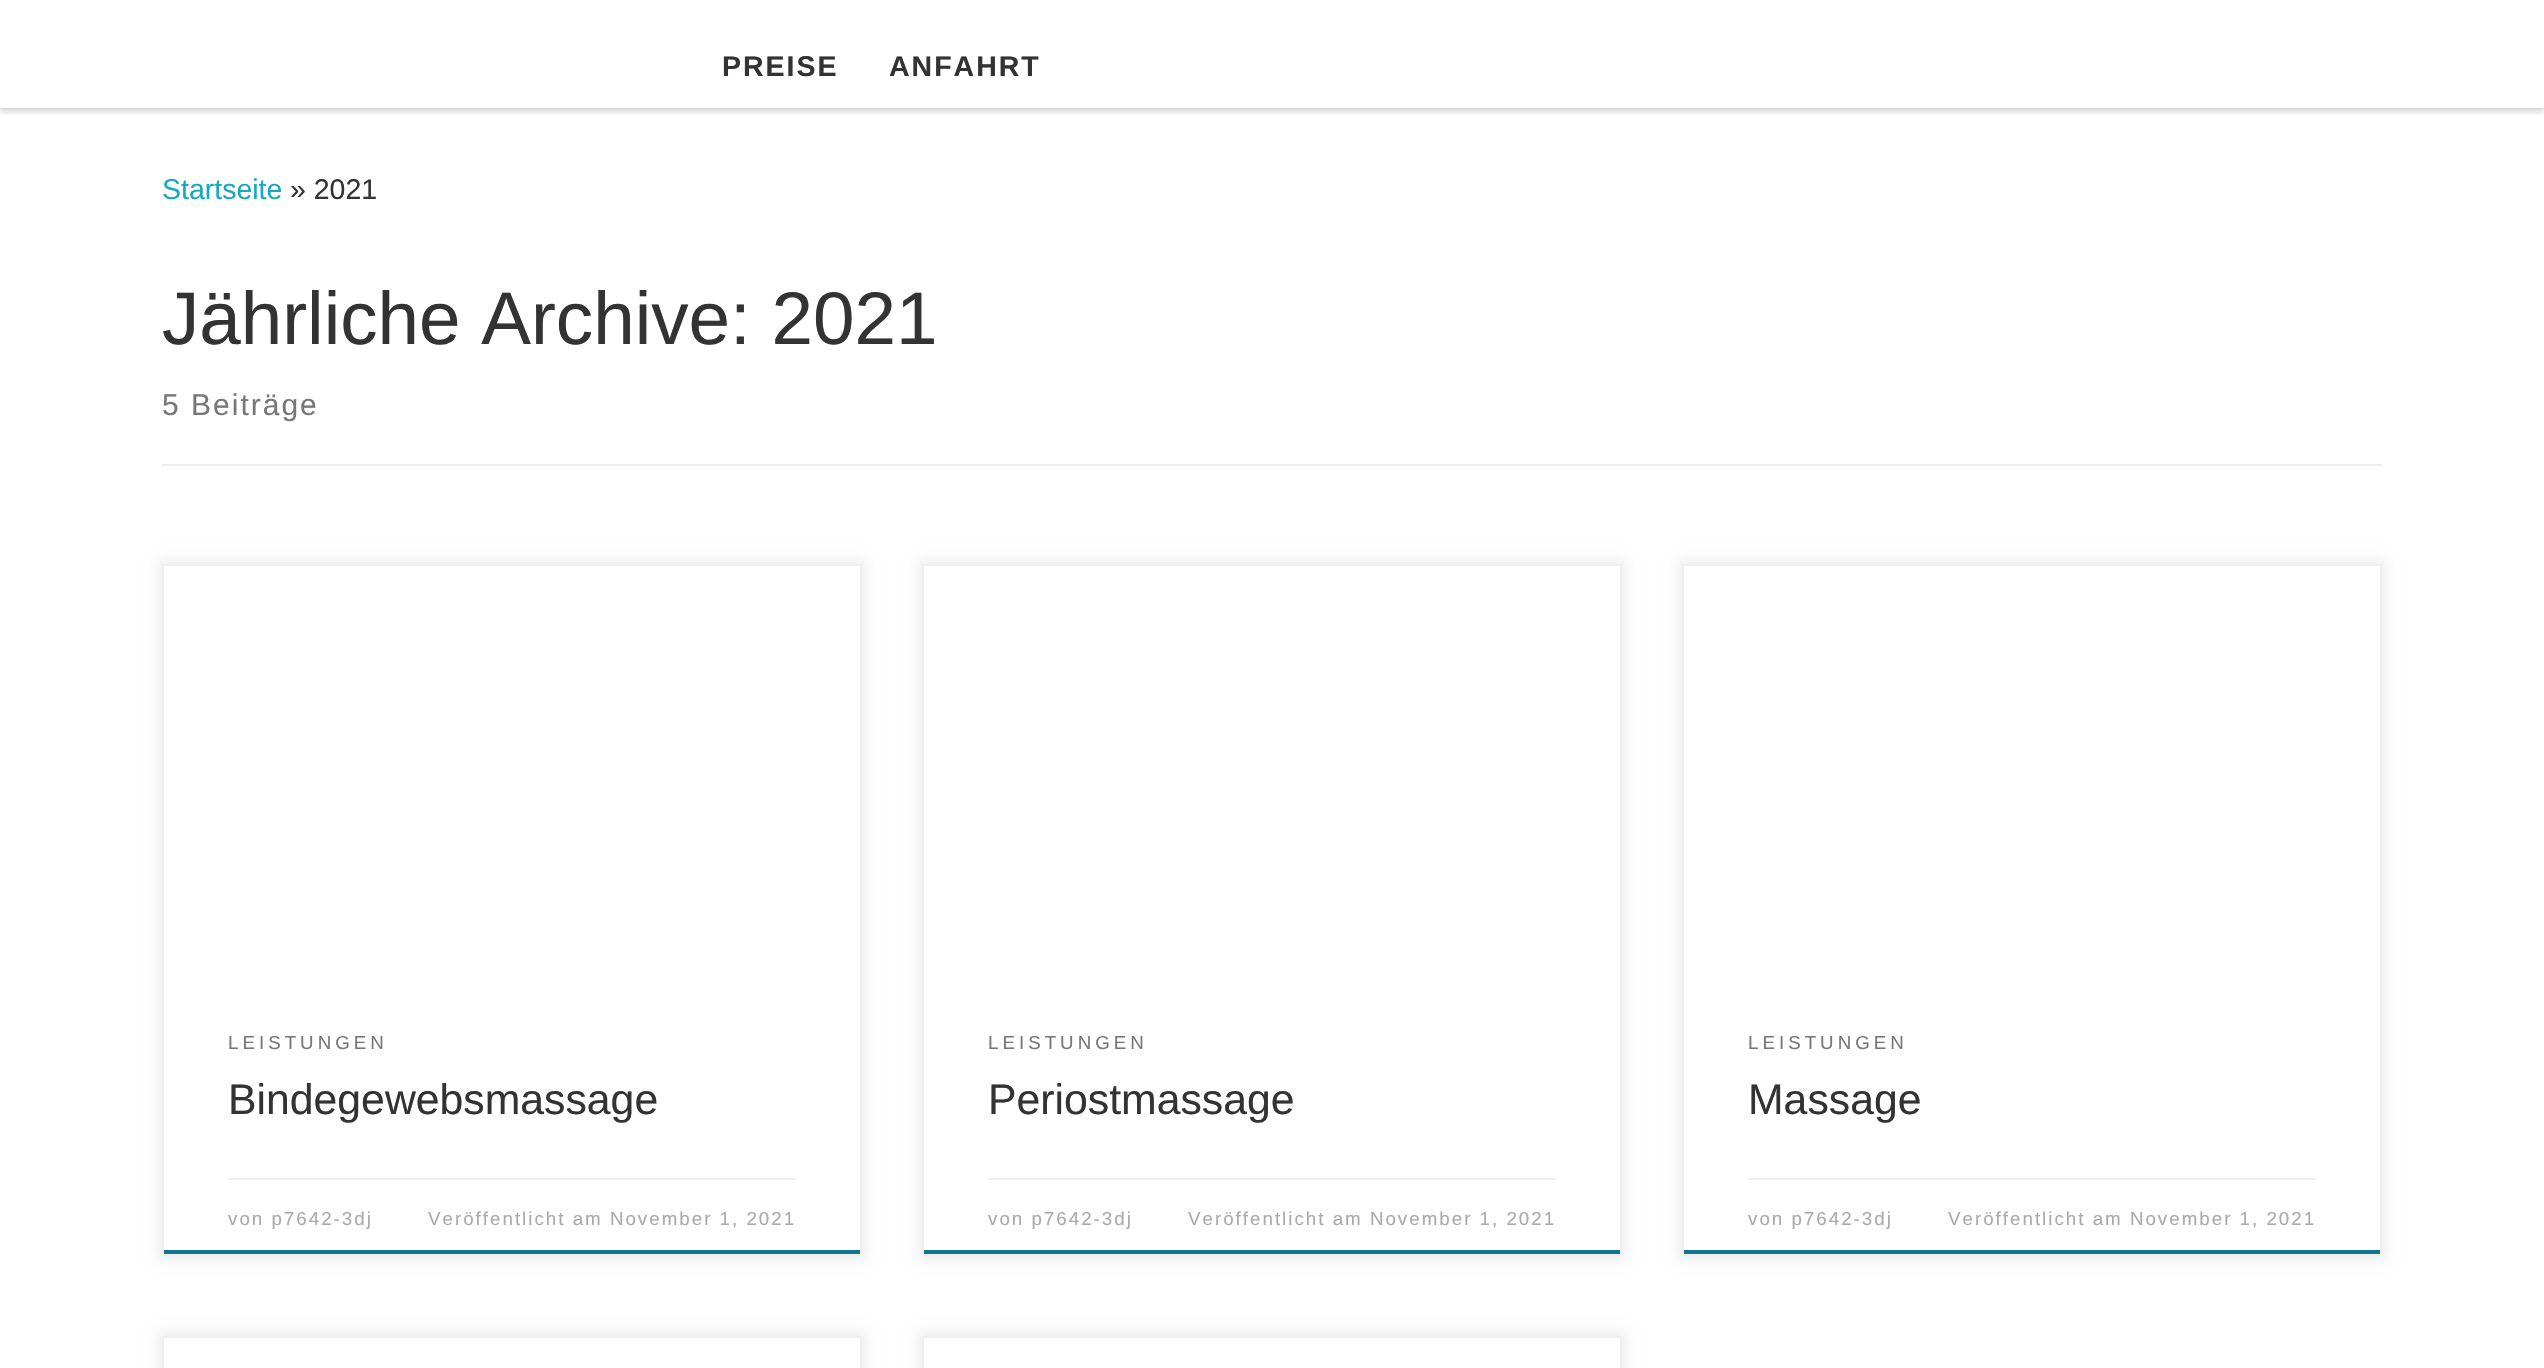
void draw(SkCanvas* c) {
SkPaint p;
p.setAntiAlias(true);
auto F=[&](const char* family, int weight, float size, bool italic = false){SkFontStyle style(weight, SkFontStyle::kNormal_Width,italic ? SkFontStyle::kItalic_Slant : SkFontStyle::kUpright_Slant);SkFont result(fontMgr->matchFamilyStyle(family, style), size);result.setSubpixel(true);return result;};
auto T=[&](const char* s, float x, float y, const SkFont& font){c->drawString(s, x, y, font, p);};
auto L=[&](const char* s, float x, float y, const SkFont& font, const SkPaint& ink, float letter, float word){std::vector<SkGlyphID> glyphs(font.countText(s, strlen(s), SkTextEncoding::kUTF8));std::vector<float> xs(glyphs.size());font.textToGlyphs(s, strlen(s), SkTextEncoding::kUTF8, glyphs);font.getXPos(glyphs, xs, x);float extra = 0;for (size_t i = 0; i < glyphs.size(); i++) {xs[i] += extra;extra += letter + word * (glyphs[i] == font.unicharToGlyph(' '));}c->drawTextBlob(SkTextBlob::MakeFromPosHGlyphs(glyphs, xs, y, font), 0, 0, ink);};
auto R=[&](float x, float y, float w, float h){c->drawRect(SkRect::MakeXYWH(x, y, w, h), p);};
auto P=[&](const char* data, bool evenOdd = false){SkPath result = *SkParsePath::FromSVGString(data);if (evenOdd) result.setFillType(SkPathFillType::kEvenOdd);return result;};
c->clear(0xffffffff);
c->save();
c->clipRect(SkRect::MakeXYWH(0,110,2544,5));
p.setColor(0x14666666);
p.setMaskFilter(SkMaskFilter::MakeBlur(kNormal_SkBlurStyle, 2));
c->drawRect(SkRect::MakeXYWH(0,-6,2544,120),p);
p.setMaskFilter(nullptr);
c->restore();
p.setColor(0xffefefef);
R(0,108,2544,2);
c->save();
c->clipRect(SkRect::MakeXYWH(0,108,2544,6));
p.setColor(0x33000000);
p.setMaskFilter(SkMaskFilter::MakeBlur(kNormal_SkBlurStyle, 5));
c->drawRect(SkRect::MakeXYWH(0,-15,2544,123),p);
p.setMaskFilter(nullptr);
c->restore();
auto f1 = F("Liberation Sans",700,28.5);
p.setColor(0xff333333);
L("PREISE",722,76,f1,p,2,0);
L("ANFAHRT",889,76,f1,p,2,0);
auto f2 = F("Liberation Sans",400,28.5);
p.setColor(0xff14a9c1);
T("Startseite",162,199,f2);
p.setColor(0xff333333);
T("» 2021",290,199,f2);
auto f3 = F("Liberation Sans",400,74.6);
T("Jährliche Archive: 2021",162,344,f3);
auto f4 = F("Liberation Sans",400,30);
p.setColor(0xff777777);
L("5 Beiträge",162,415,f4,p,2,0);
p.setColor(0xffeceeef);
R(162,464,2220,2);
c->save();
c->clipPath(P("M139 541h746v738h-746zm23 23h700v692h-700z",true),true);
p.setColor(0x12000000);
p.setMaskFilter(SkMaskFilter::MakeBlur(kNormal_SkBlurStyle, 6));
c->drawRect(SkRect::MakeXYWH(158,560,708,700),p);
p.setMaskFilter(nullptr);
c->restore();
p.setColor(0xff0e788a);
R(162,1250,700,4);
p.setStroke(true);
p.setStrokeWidth(2);
p.setColor(0xffefefef);
c->drawRect(SkRect::MakeXYWH(163,565,698,690),p);
auto f5 = F("Liberation Sans",400,18.75);
p.setStroke(false);
p.setColor(0xff777777);
L("LEISTUNGEN",228,1049,f5,p,4,0);
auto f6 = F("Liberation Sans",400,42.75);
p.setColor(0xff333333);
T("Bindegewebsmassage",228,1114,f6);
p.setColor(0xffeceeef);
R(228,1178,568,2);
p.setColor(0xffaaaaaa);
L("von p7642-3dj",228,1225,f5,p,2,0);
L("Veröffentlicht am November 1, 2021",428,1225,f5,p,2,0);
c->save();
c->clipPath(P("M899 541h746v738h-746zm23 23h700v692h-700z",true),true);
p.setColor(0x12000000);
p.setMaskFilter(SkMaskFilter::MakeBlur(kNormal_SkBlurStyle, 6));
c->drawRect(SkRect::MakeXYWH(918,560,708,700),p);
p.setMaskFilter(nullptr);
c->restore();
p.setColor(0xff0e788a);
R(922,1250,700,4);
p.setStroke(true);
p.setColor(0xffefefef);
c->drawRect(SkRect::MakeXYWH(923,565,698,690),p);
p.setStroke(false);
p.setColor(0xff777777);
L("LEISTUNGEN",988,1049,f5,p,4,0);
p.setColor(0xff333333);
T("Periostmassage",988,1114,f6);
p.setColor(0xffeceeef);
R(988,1178,568,2);
p.setColor(0xffaaaaaa);
L("von p7642-3dj",988,1225,f5,p,2,0);
L("Veröffentlicht am November 1, 2021",1188,1225,f5,p,2,0);
c->save();
c->clipPath(P("M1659 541h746v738h-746zm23 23h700v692h-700z",true),true);
p.setColor(0x12000000);
p.setMaskFilter(SkMaskFilter::MakeBlur(kNormal_SkBlurStyle, 6));
c->drawRect(SkRect::MakeXYWH(1678,560,708,700),p);
p.setMaskFilter(nullptr);
c->restore();
p.setColor(0xff0e788a);
R(1682,1250,700,4);
p.setStroke(true);
p.setColor(0xffefefef);
c->drawRect(SkRect::MakeXYWH(1683,565,698,690),p);
p.setStroke(false);
p.setColor(0xff777777);
L("LEISTUNGEN",1748,1049,f5,p,4,0);
p.setColor(0xff333333);
T("Massage",1748,1114,f6);
p.setColor(0xffeceeef);
R(1748,1178,568,2);
p.setColor(0xffaaaaaa);
L("von p7642-3dj",1748,1225,f5,p,2,0);
L("Veröffentlicht am November 1, 2021",1948,1225,f5,p,2,0);
c->save();
c->clipPath(P("M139 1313h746v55h-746zm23 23h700v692h-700z",true),true);
p.setColor(0x12000000);
p.setMaskFilter(SkMaskFilter::MakeBlur(kNormal_SkBlurStyle, 6));
c->drawRect(SkRect::MakeXYWH(158,1332,708,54),p);
p.setMaskFilter(nullptr);
c->restore();
p.setStroke(true);
p.setColor(0xffefefef);
c->drawRect(SkRect::MakeXYWH(163,1337,698,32),p);
c->save();
c->clipPath(P("M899 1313h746v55h-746zm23 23h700v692h-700z",true),true);
p.setStroke(false);
p.setColor(0x12000000);
p.setMaskFilter(SkMaskFilter::MakeBlur(kNormal_SkBlurStyle, 6));
c->drawRect(SkRect::MakeXYWH(918,1332,708,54),p);
p.setMaskFilter(nullptr);
c->restore();
p.setStroke(true);
p.setColor(0xffefefef);
c->drawRect(SkRect::MakeXYWH(923,1337,698,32),p);
}
